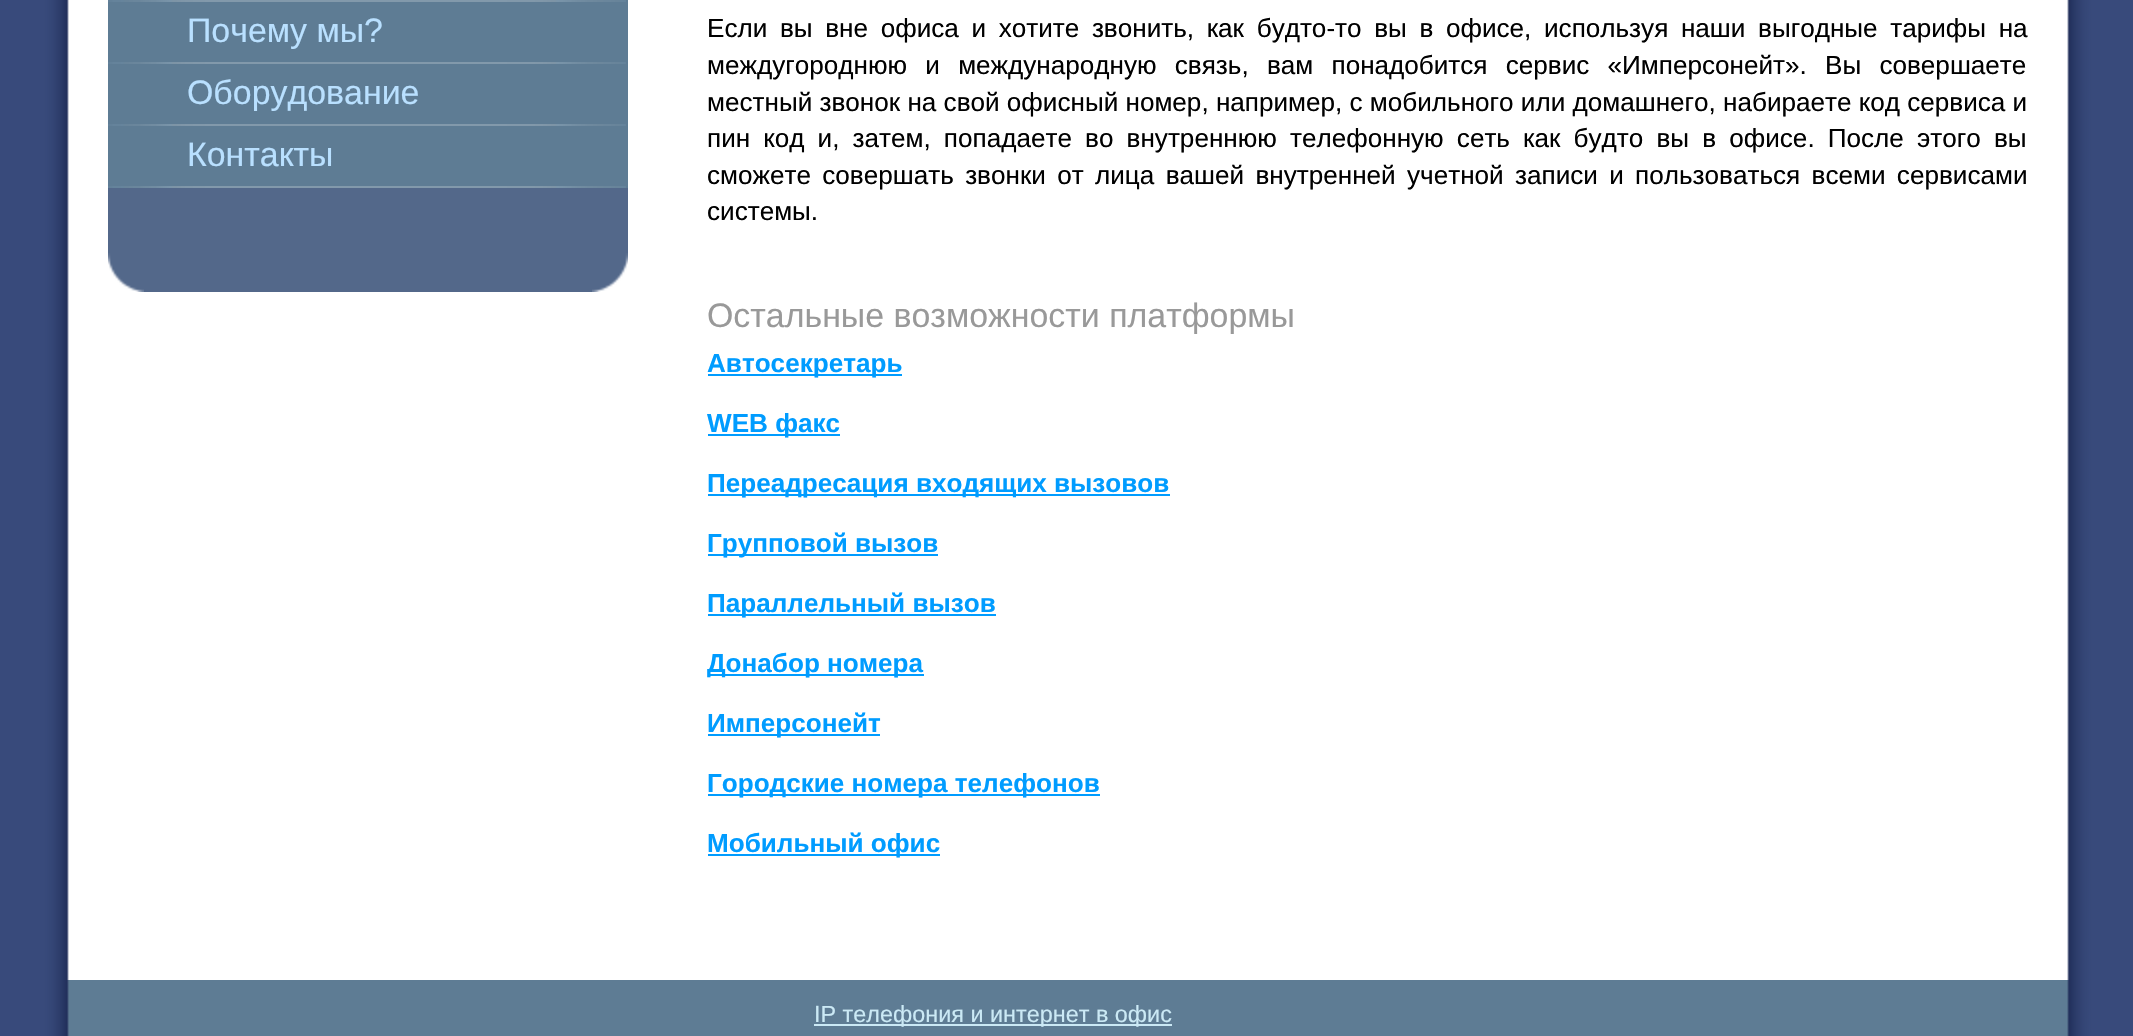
void draw(SkCanvas* c) {
SkPaint p;
p.setAntiAlias(true);
auto F=[&](const char* family, int weight, float size, bool italic = false){SkFontStyle style(weight, SkFontStyle::kNormal_Width,italic ? SkFontStyle::kItalic_Slant : SkFontStyle::kUpright_Slant);SkFont result(fontMgr->matchFamilyStyle(family, style), size);result.setSubpixel(true);return result;};
auto T=[&](const char* s, float x, float y, const SkFont& font){c->drawString(s, x, y, font, p);};
auto L=[&](const char* s, float x, float y, const SkFont& font, const SkPaint& ink, float letter, float word){std::vector<SkGlyphID> glyphs(font.countText(s, strlen(s), SkTextEncoding::kUTF8));std::vector<float> xs(glyphs.size());font.textToGlyphs(s, strlen(s), SkTextEncoding::kUTF8, glyphs);font.getXPos(glyphs, xs, x);float extra = 0;for (size_t i = 0; i < glyphs.size(); i++) {xs[i] += extra;extra += letter + word * (glyphs[i] == font.unicharToGlyph(' '));}c->drawTextBlob(SkTextBlob::MakeFromPosHGlyphs(glyphs, xs, y, font), 0, 0, ink);};
auto R=[&](float x, float y, float w, float h){c->drawRect(SkRect::MakeXYWH(x, y, w, h), p);};
auto I=[&](const char* path, float x, float y, float w, float h){auto image = SkImages::DeferredFromEncodedData(SkData::MakeFromFileName(path));c->drawImageRect(image, SkRect::MakeXYWH(x, y, w, h), SkSamplingOptions());};
c->clear(0xff384a7b);
I("1.png",44,0,2048,980);
p.setColor(0xff5e7c94);
R(626,0,2,2);
I("2.png",108,0,518,2);
R(108,2,520,186);
I("2.png",108,62,518,2);
auto f1 = F("Liberation Sans",400,33.9);
p.setColor(0xffb9e0ff);
T("Почему мы?",187,42,f1);
I("2.png",108,124,518,2);
T("Оборудование",187,104,f1);
I("2.png",108,186,518,2);
T("Контакты",187,166,f1);
p.setColor(0xff53688a);
R(108,188,520,104);
I("3.png",592,253,36,39);
I("4.png",108,253,36,39);
auto f2 = F("Liberation Sans",400,26.1);
p.setColor(0xff000000);
L("Если вы вне офиса и хотите звонить, как будто-то вы в офисе, используя наши выгодные тарифы на",707,37,f2,p,0,5.4);
L("междугороднюю и международную связь, вам понадобится сервис «Имперсонейт». Вы совершаете",707,74,f2,p,0,11);
T("местный звонок на свой офисный номер, например, с мобильного или домашнего, набираете код сервиса и",707,111,f2);
L("пин код и, затем, попадаете во внутреннюю телефонную сеть как будто вы в офисе. После этого вы",707,147,f2,p,0,5.9);
L("сможете совершать звонки от лица вашей внутренней учетной записи и пользоваться всеми сервисами",707,184,f2,p,0,4.1);
T("системы.",707,220,f2);
p.setColor(0xff999999);
T("Остальные возможности платформы",707,327,f1);
p.setColor(0xff009cff);
R(708,374,194,2);
auto f3 = F("Liberation Sans",700,26.1);
T("Автосекретарь",707,372,f3);
R(708,434,132,2);
T("WEB факс",707,432,f3);
R(708,494,462,2);
T("Переадресация входящих вызовов",707,492,f3);
R(708,554,230,2);
T("Групповой вызов",707,552,f3);
R(708,614,288,2);
T("Параллельный вызов",707,612,f3);
R(708,674,216,2);
T("Донабор номера",707,672,f3);
R(708,734,172,2);
T("Имперсонейт",707,732,f3);
R(708,794,392,2);
T("Городские номера телефонов",707,792,f3);
R(708,854,232,2);
T("Мобильный офис",707,852,f3);
p.setColor(0xff5e7c94);
R(69,980,1998,56);
I("5.png",44,980,25,56);
p.setColor(0xffcbe9f5);
R(814,1024,358,2);
auto f4 = F("Liberation Sans",400,23.4);
T("IP телефония и интернет в офис",814,1022,f4);
I("6.png",2067,980,25,56);
}
